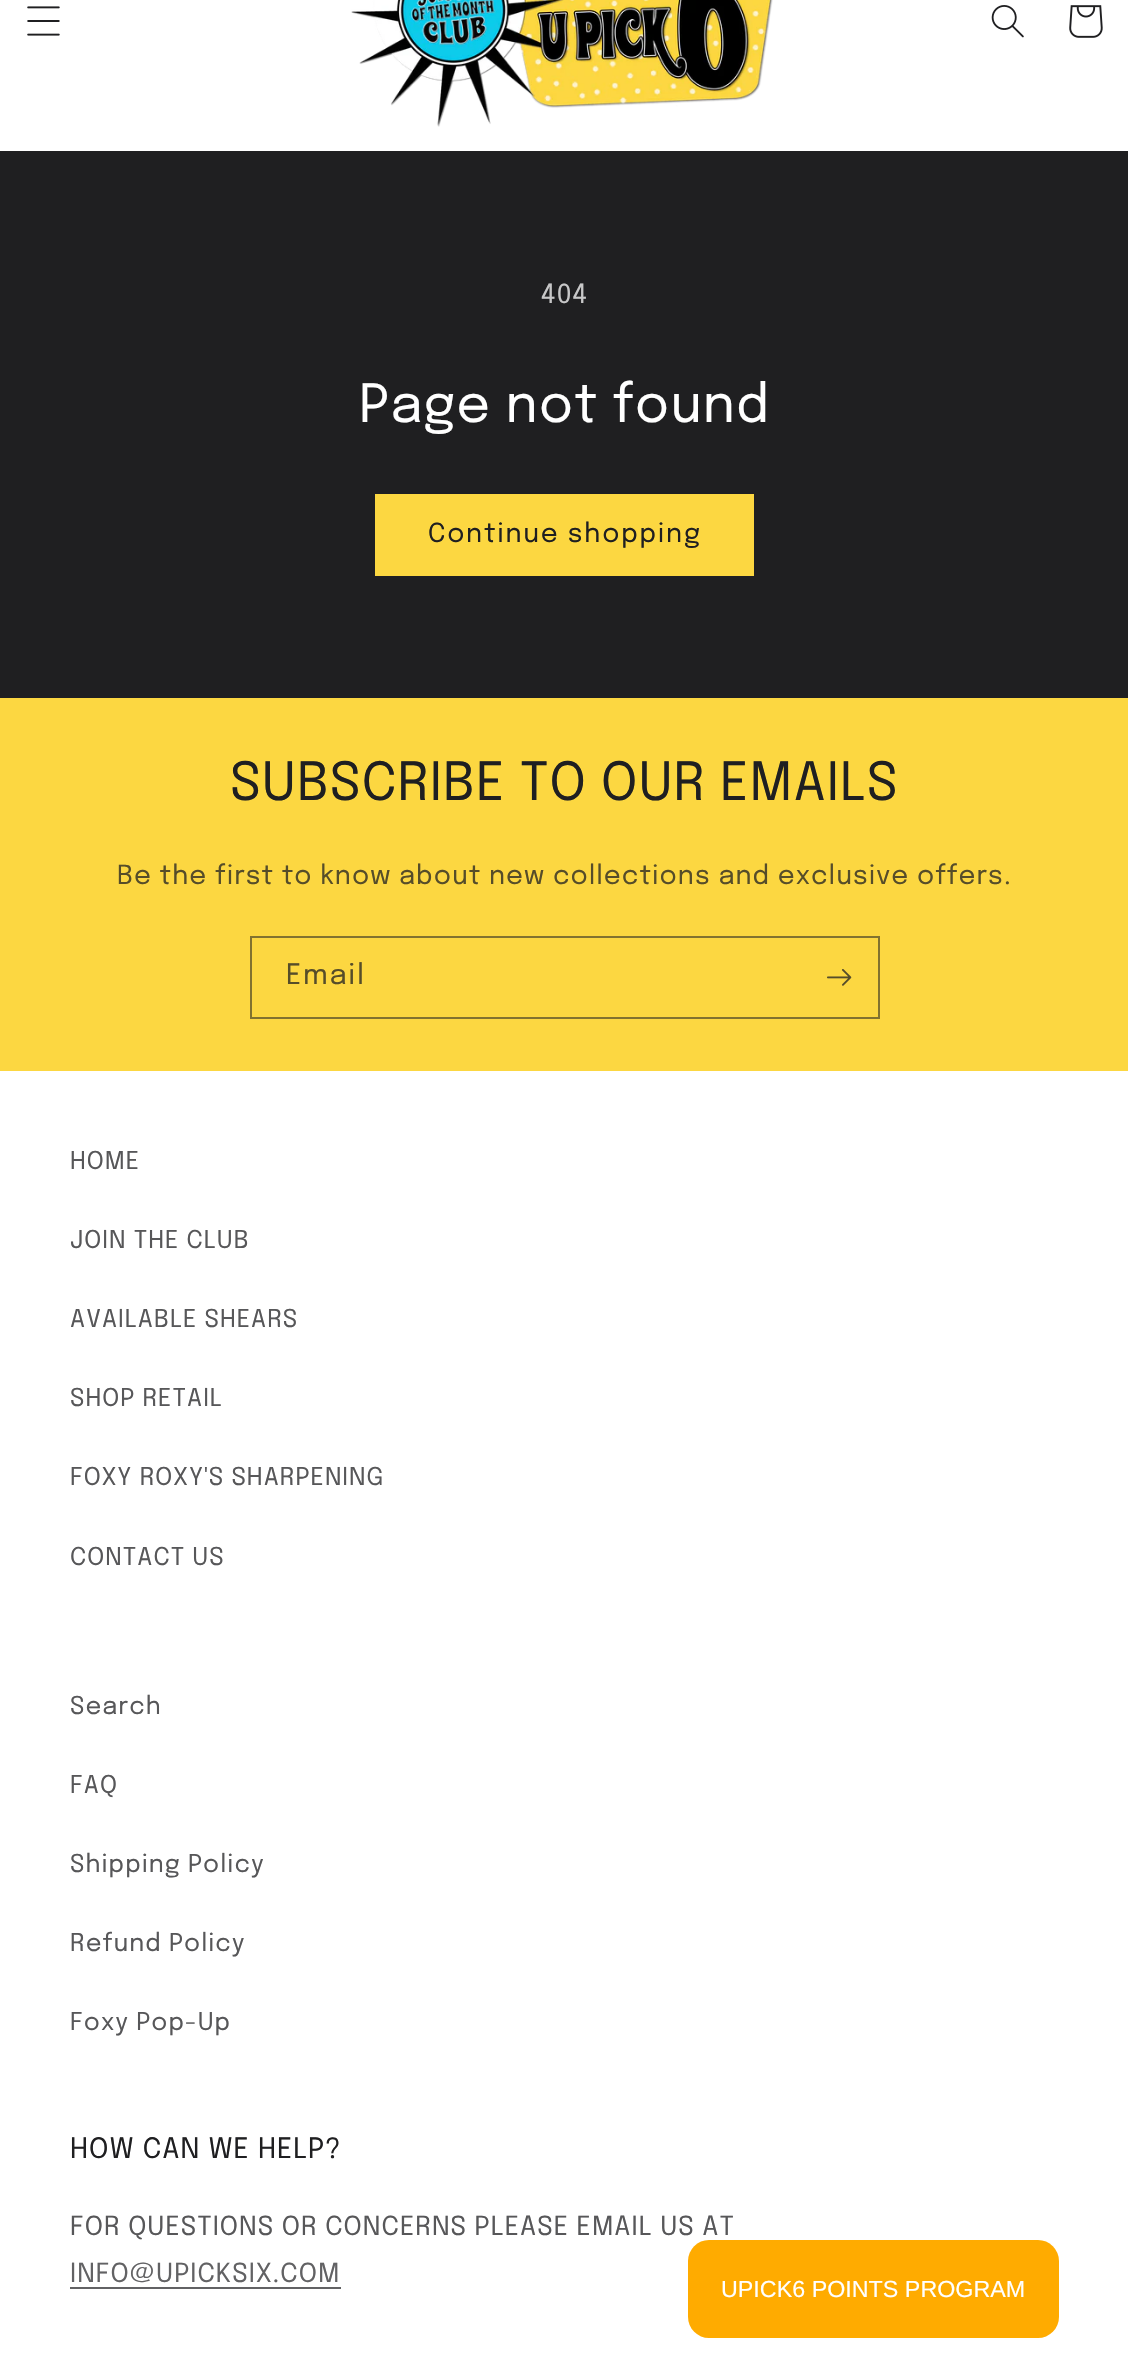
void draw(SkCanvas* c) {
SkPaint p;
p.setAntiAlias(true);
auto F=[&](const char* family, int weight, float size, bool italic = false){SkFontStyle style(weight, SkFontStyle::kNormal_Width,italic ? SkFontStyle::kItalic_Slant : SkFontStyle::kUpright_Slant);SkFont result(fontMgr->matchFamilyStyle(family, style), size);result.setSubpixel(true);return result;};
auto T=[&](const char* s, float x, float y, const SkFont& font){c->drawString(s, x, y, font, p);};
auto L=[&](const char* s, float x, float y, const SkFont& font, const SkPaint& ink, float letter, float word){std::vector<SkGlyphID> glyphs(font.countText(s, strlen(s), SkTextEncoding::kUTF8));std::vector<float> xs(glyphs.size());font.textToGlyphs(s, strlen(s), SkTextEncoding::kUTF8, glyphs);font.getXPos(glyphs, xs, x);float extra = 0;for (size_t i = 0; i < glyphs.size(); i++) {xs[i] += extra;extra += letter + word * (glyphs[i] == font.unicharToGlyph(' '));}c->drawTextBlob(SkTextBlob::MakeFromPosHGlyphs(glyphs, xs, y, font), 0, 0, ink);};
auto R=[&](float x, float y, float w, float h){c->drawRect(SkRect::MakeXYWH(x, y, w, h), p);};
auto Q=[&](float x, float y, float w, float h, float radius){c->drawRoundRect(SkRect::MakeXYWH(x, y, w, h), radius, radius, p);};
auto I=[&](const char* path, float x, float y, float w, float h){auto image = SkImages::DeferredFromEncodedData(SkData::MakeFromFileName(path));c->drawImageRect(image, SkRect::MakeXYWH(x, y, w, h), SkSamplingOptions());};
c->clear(0xff1f1f21);
p.setColor(0xffffffff);
R(0,0,1128,151);
I("1.png",27,6,33,30);
I("2.png",351,0,422,127);
I("3.png",991,5,33,33);
I("4.png",1069,5,34,33);
auto f1 = F("Epilogue",400,26.25);
p.setColor(0xffc7c7c8);
L("404",541,303,f1,p,1.05,0);
auto f2 = F("Epilogue",400,52.5);
p.setColor(0xffffffff);
L("Page not found",359,422,f2,p,1.05,0);
p.setColor(0xfffcd741);
R(375,494,379,82);
p.setColor(0xff1f1f21);
L("Continue shopping",428,542,f1,p,1.75,0);
p.setColor(0xfffcd741);
R(0,698,1128,373);
p.setColor(0xff1f1f21);
L("SUBSCRIBE TO OUR EMAILS",230,800,f2,p,1.05,0);
p.setColor(0xff564d29);
L("Be the first to know about new collections and exclusive offers.",117,884,f1,p,1.05,0);
p.setStroke(true);
p.setStrokeWidth(2);
p.setColor(0xff82722f);
c->drawRect(SkRect::MakeXYWH(251,937,628,81),p);
auto f3 = F("Epilogue",400,28);
p.setStroke(false);
p.setColor(0xff564d29);
L("Email",286,984,f3,p,1.75,0);
I("5.png",827,969,25,17);
p.setColor(0xffffffff);
R(0,1071,1128,1309);
auto f4 = F("Epilogue",400,24.5);
p.setColor(0xff575759);
L("HOME",70,1169,f4,p,1.05,0);
L("JOIN THE CLUB",70,1248,f4,p,1.05,0);
L("AVAILABLE SHEARS",70,1327,f4,p,1.05,0);
L("SHOP RETAIL",70,1406,f4,p,1.05,0);
L("FOXY ROXY'S SHARPENING",70,1485,f4,p,1.05,0);
L("CONTACT US",70,1565,f4,p,1.05,0);
L("Search",70,1714,f4,p,1.05,0);
L("FAQ",70,1793,f4,p,1.05,0);
L("Shipping Policy",70,1872,f4,p,1.05,0);
L("Refund Policy",70,1951,f4,p,1.05,0);
L("Foxy Pop-Up",70,2030,f4,p,1.05,0);
p.setColor(0xff1f1f21);
L("HOW CAN WE HELP?",70,2158,f3,p,1.05,0);
p.setColor(0xff575759);
L("FOR QUESTIONS OR CONCERNS PLEASE EMAIL US AT",70,2235,f1,p,1.05,0);
p.setColor(0xff626264);
L("INFO@UPICKSIX.COM",70,2282,f1,p,1.05,0);
R(70,2287,271,2);
p.setColor(0xffffab00);
Q(688,2240,371,98,21);
auto f5 = F("Liberation Sans",400,23.3);
p.setColor(0xffffffff);
T("UPICK6 POINTS PROGRAM",721,2297,f5);
}
